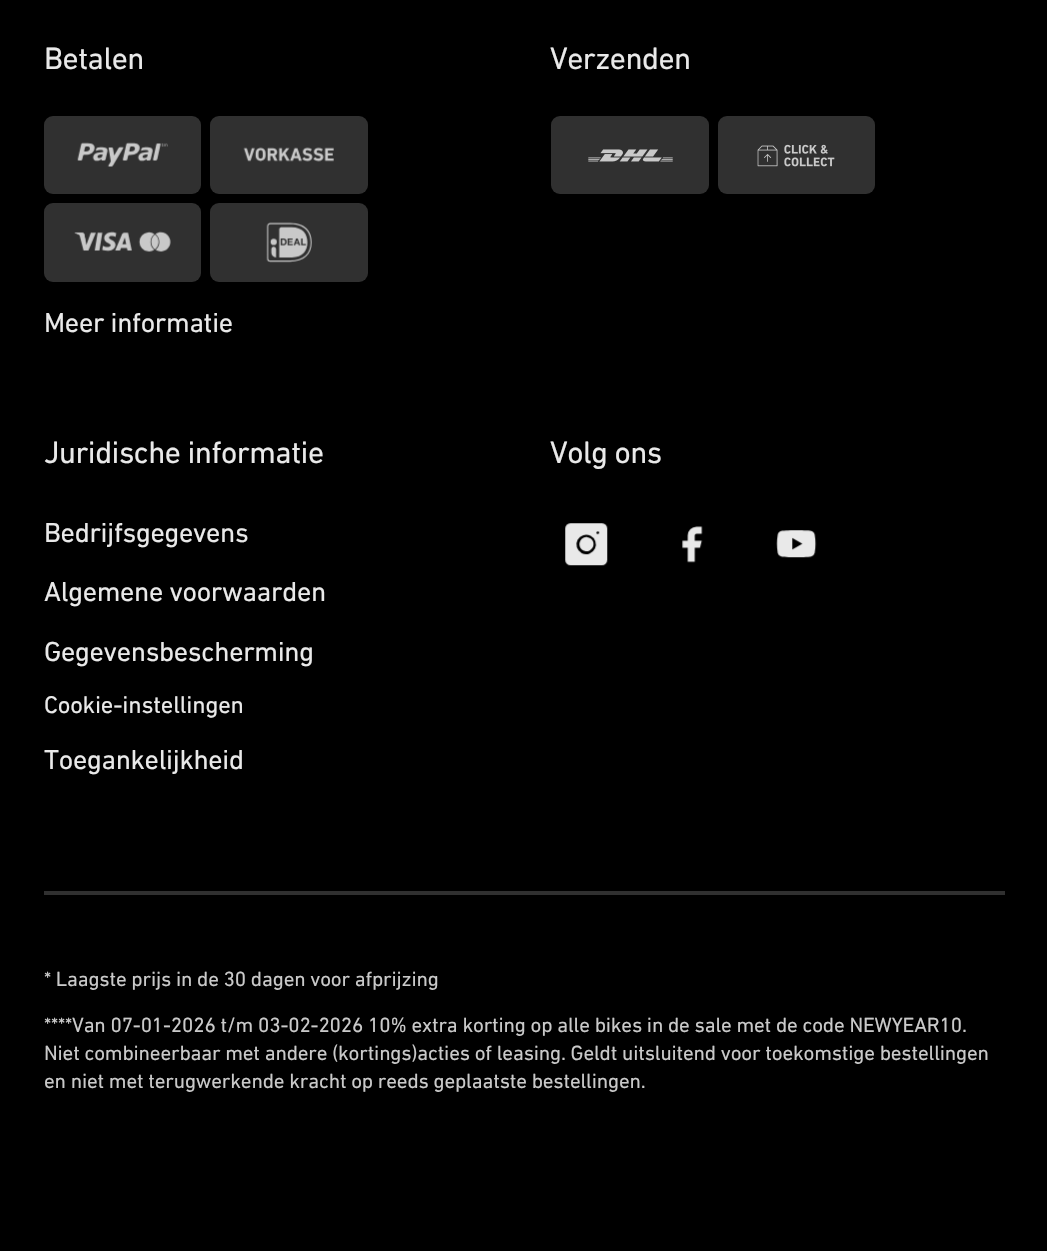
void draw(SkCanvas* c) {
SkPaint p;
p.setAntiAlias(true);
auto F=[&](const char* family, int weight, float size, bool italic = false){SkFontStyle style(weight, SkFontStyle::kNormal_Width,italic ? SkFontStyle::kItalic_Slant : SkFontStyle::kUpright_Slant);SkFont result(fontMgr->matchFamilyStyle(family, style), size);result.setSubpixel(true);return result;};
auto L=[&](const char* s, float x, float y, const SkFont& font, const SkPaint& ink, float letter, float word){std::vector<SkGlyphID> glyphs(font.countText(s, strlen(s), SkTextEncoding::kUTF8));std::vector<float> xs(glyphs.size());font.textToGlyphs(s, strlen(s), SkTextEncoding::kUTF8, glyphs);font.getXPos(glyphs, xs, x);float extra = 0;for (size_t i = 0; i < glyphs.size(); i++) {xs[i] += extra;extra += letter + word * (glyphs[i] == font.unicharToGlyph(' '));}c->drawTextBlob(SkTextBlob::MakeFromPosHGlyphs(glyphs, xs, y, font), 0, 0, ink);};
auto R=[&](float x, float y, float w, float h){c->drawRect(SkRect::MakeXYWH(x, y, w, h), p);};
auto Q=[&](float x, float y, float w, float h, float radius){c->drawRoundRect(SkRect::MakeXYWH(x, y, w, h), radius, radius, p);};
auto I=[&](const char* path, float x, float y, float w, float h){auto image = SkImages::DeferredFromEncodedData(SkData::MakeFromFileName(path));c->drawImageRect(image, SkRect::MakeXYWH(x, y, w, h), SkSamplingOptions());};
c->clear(0xff000000);
auto f1 = F("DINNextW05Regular",400,31.5);
p.setColor(0xffe9e9e9);
L("Betalen",44,69,f1,p,-.5,0);
p.setColor(0xff303030);
Q(44,116,157,78,9);
I("1.png",77,142,91,25);
Q(210,116,158,78,9);
I("2.png",243,147,91,15);
Q(44,203,157,79,9);
I("3.png",74,231,97,21);
Q(210,203,158,79,9);
I("4.png",266,222,46,41);
auto f2 = F("DINNextW05Regular",400,28);
p.setColor(0xffe9e9e9);
L("Meer informatie",44,332,f2,p,-.3,0);
L("Verzenden",550,69,f1,p,-.5,0);
p.setColor(0xff303030);
Q(551,116,158,78,9);
I("5.png",588,149,85,13);
Q(718,116,157,78,9);
I("6.png",757,144,78,23);
p.setColor(0xffe9e9e9);
L("Juridische informatie",44,463,f1,p,-.5,0);
L("Bedrijfsgegevens",44,542,f2,p,-.3,0);
L("Algemene voorwaarden",44,601,f2,p,-.3,0);
L("Gegevensbescherming",44,661,f2,p,-.3,0);
auto f3 = F("DINNextW05Regular",400,24.5);
L("Cookie-instellingen",44,713,f3,p,-.18,0);
L("Toegankelijkheid",44,769,f2,p,-.3,0);
L("Volg ons",550,463,f1,p,-.5,0);
I("7.png",565,523,43,43);
I("8.png",682,526,21,37);
I("9.png",776,530,41,28);
p.setColor(0xff303030);
R(44,891,961,4);
auto f4 = F("DINNextW05Regular",400,21);
p.setColor(0xffc9c9c9);
L("* Laagste prijs in de 30 dagen voor afprijzing",44,986,f4,p,-.18,0);
L("****Van 07-01-2026 t/m 03-02-2026 10% extra korting op alle bikes in de sale met de code NEWYEAR10.",44,1032,f4,p,-.18,0);
L("Niet combineerbaar met andere (kortings)acties of leasing. Geldt uitsluitend voor toekomstige bestellingen",44,1060,f4,p,-.18,0);
L("en niet met terugwerkende kracht op reeds geplaatste bestellingen.",44,1088,f4,p,-.18,0);
}
